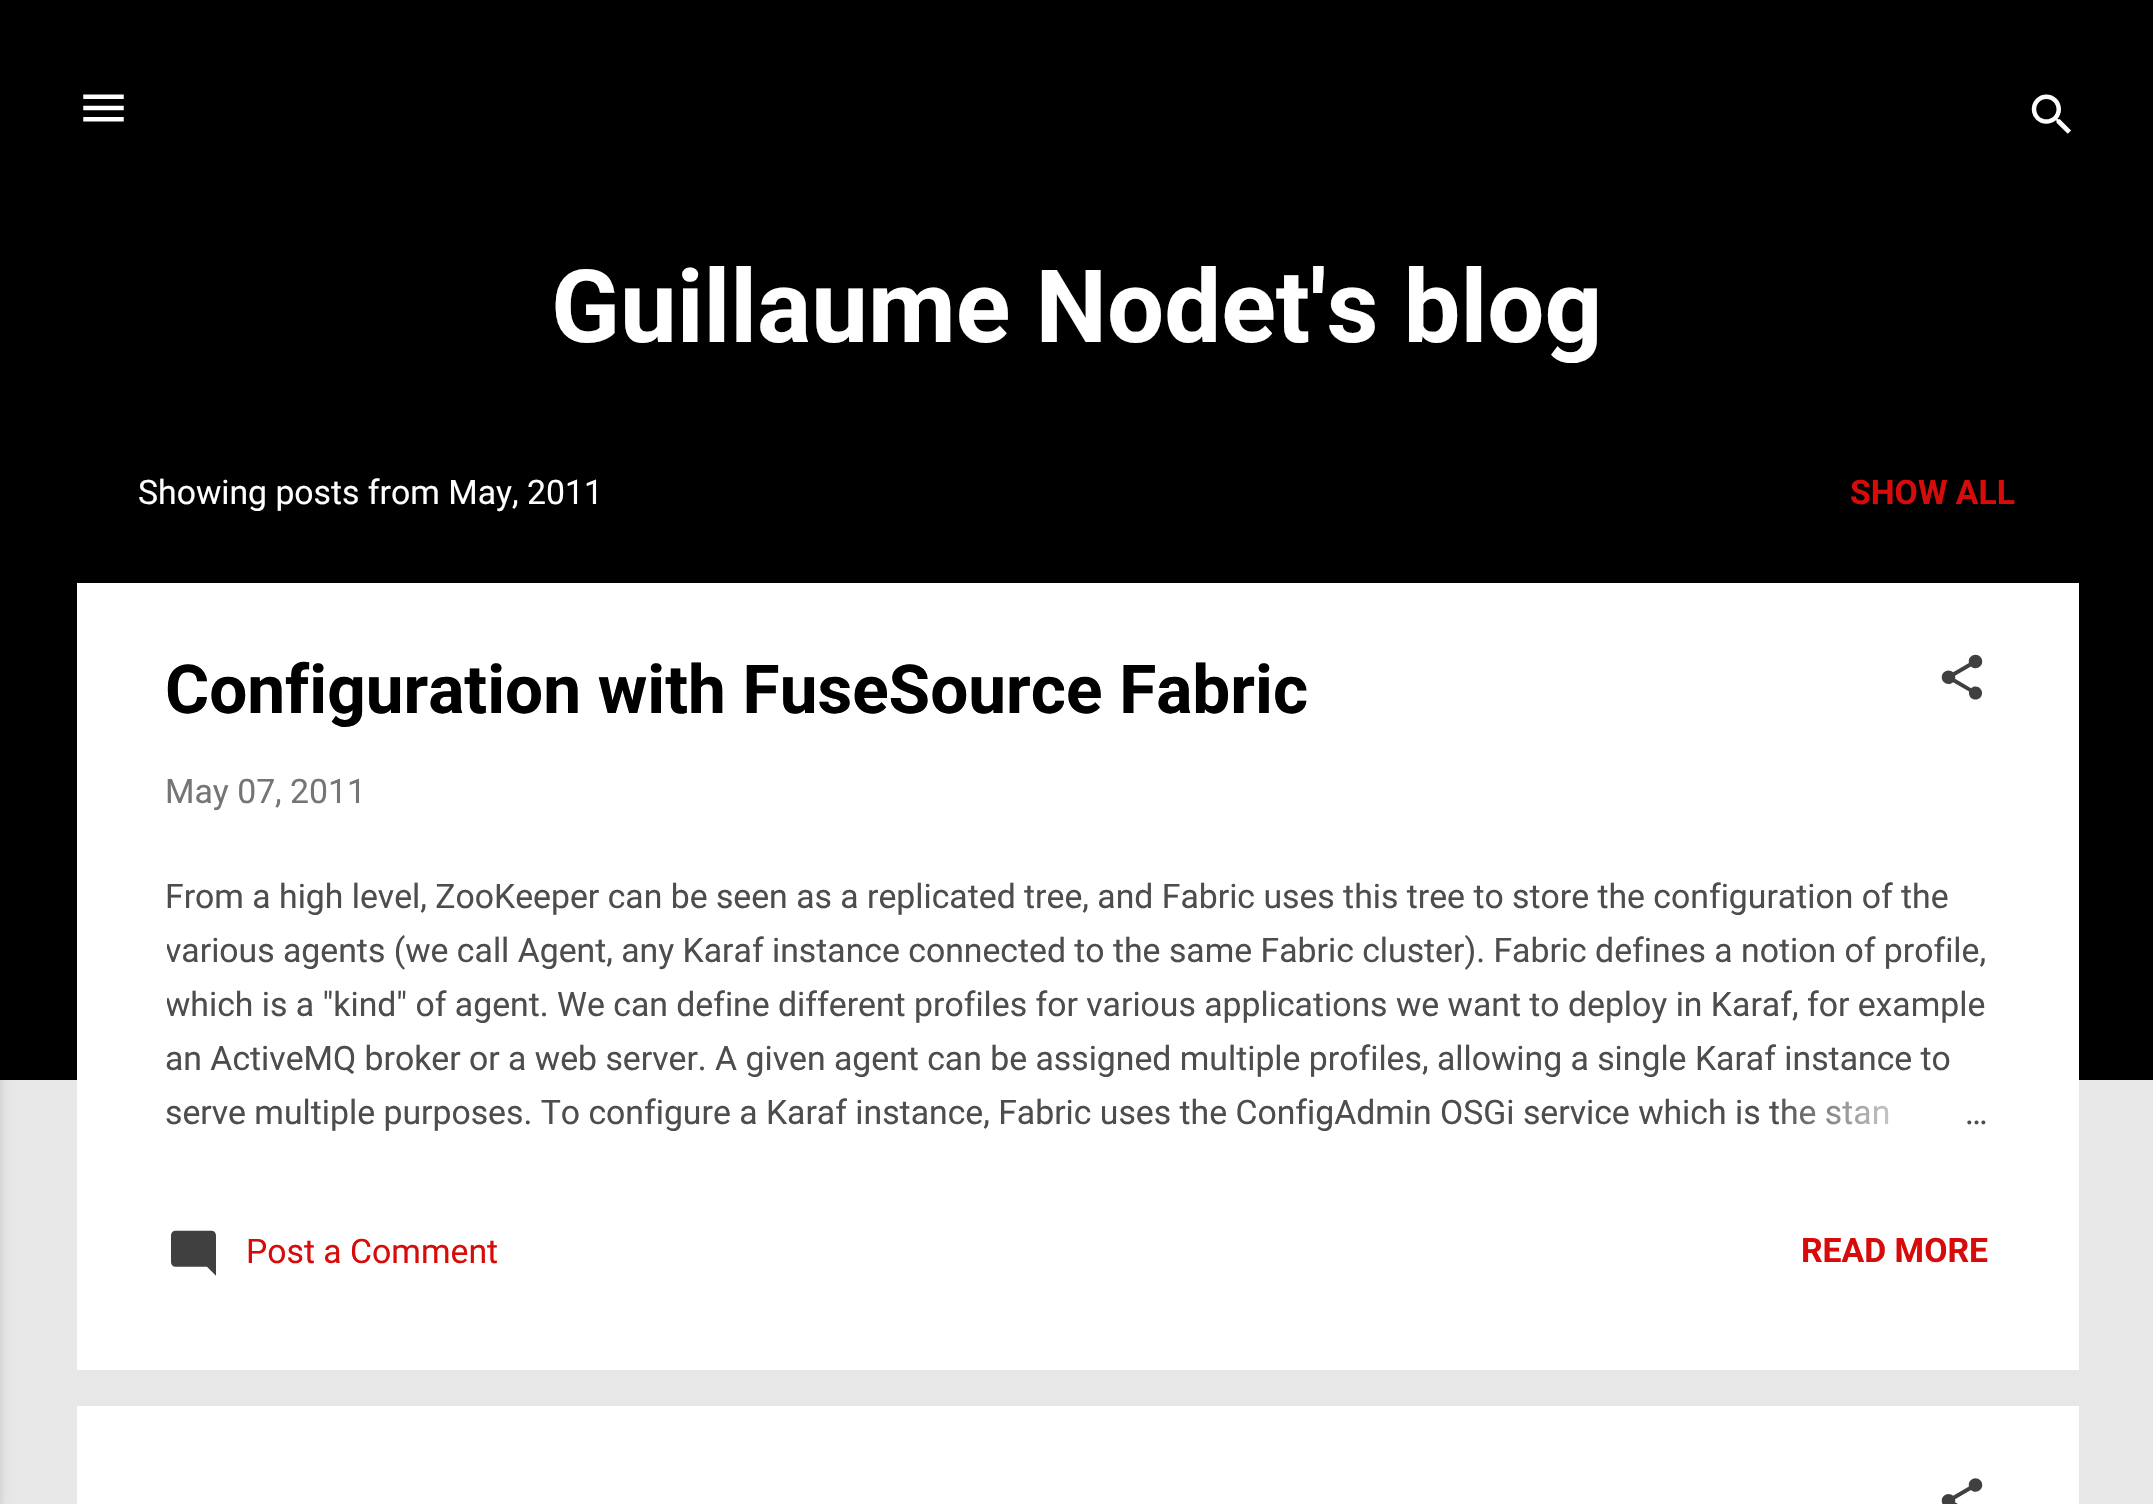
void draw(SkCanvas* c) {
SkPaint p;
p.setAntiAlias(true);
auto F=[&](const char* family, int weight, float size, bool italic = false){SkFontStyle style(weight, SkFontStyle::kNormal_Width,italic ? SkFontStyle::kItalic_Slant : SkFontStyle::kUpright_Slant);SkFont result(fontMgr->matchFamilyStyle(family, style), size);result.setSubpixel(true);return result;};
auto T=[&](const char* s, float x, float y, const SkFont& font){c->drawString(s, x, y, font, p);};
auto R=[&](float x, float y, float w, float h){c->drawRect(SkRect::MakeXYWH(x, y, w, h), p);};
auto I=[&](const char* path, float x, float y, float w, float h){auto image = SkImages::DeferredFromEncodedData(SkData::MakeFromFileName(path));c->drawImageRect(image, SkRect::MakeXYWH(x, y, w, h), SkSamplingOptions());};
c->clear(0xffe7e7e7);
p.setColor(0xff000000);
R(0,0,2153,1080);
p.setColor(0x1a000000);
p.setMaskFilter(SkMaskFilter::MakeBlur(kNormal_SkBlurStyle, 3.5));
c->drawRect(SkRect::MakeXYWH(-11,2,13,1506),p);
p.setMaskFilter(nullptr);
I("1.png",83,94,41,28);
I("2.png",2031,94,40,40);
auto f1 = F("Roboto",700,101.25);
p.setColor(0xffffffff);
T("Guillaume Nodet's blog",551,342,f1);
auto f2 = F("Roboto",400,33.75);
T("Showing posts from May, 2011",138,504,f2);
auto f3 = F("Roboto",700,33.75);
p.setColor(0xffd80b0b);
T("SHOW ALL",1850,504,f3);
p.setColor(0xffffffff);
R(77,583,2002,787);
auto f4 = F("Roboto",700,67.5);
p.setColor(0xff000000);
T("Configuration with FuseSource Fabric",165,713,f4);
I("3.png",1941,654,42,46);
p.setColor(0xff757575);
T("May 07, 2011",165,803,f2);
p.setColor(0xff4d4d4d);
T("From a high level, ZooKeeper can be seen as a replicated tree, and Fabric uses this tree to store the configuration of the",165,908,f2);
c->save();
c->clipRect(SkRect::MakeXYWH(167,871,1822,270));
T("various agents (we call Agent, any Karaf instance connected to the same Fabric cluster). Fabric defines a notion of profile,",165,962,f2);
T("which is a \"kind\" of agent.",165,1016,f2);
c->restore();
T("We can define different profiles for various applications we want to deploy in Karaf, for example",557,1016,f2);
T("an ActiveMQ broker or a web server. A given agent can be assigned multiple profiles, allowing a single Karaf instance to",165,1070,f2);
T("serve multiple purposes. To configure a Karaf instance, Fabric uses the ConfigAdmin OSGi service which is the stan",165,1124,f2);
{
const SkColor colors[] = {0xffffffff,0xffffffff,0x00ffffff};
const float stops[] = {0,.2,1};
const SkPoint ends[] = {{1989,1114}, {1773,1114}};
p.setShader(SkGradientShader::MakeLinear(ends, colors, stops, 3, SkTileMode::kClamp));
p.setAlpha(255);
}
R(1777,1098,112,27);
p.setShader(nullptr);
p.setColor(0xff4d4d4d);
T("…",1965,1124,f2);
I("4.png",171,1230,45,46);
p.setColor(0xffd80b0b);
T("Post a Comment",246,1263,f2);
T("READ MORE",1801,1262,f3);
p.setColor(0xffffffff);
R(77,1406,2002,98);
I("5.png",1941,1478,42,26);
}
